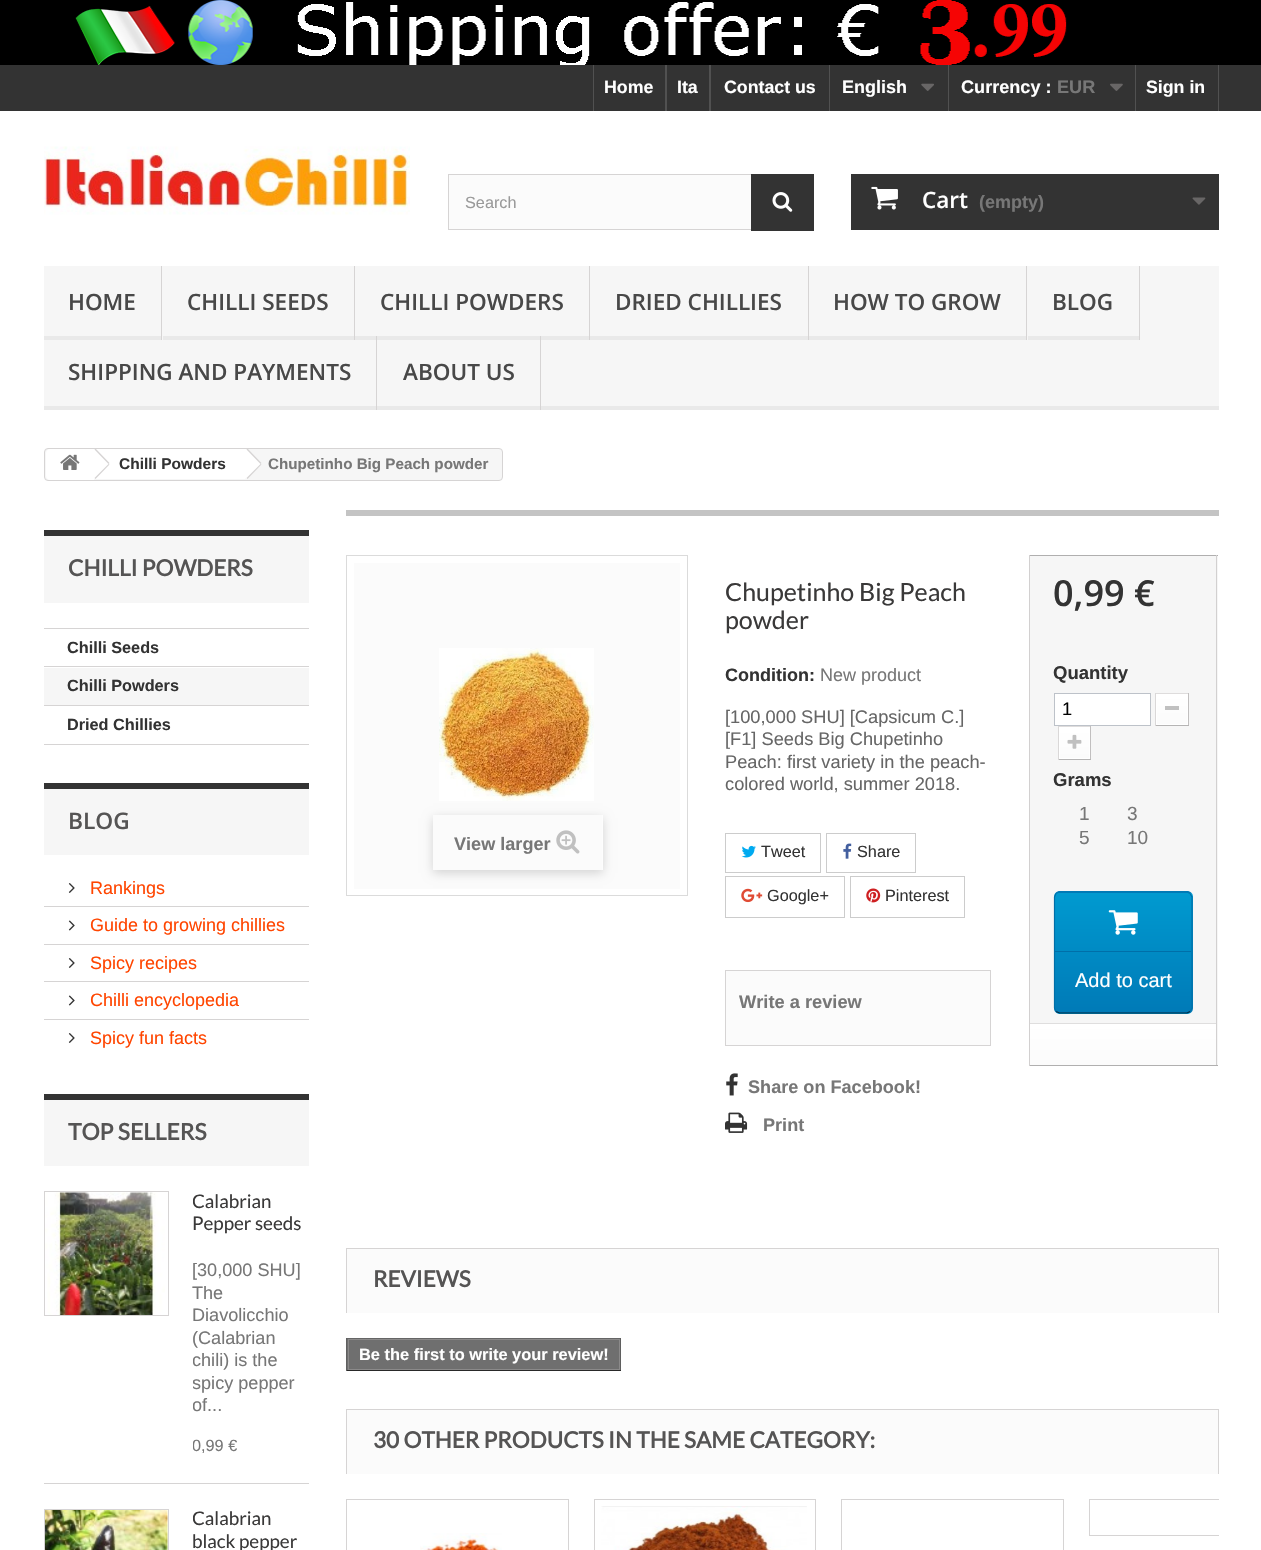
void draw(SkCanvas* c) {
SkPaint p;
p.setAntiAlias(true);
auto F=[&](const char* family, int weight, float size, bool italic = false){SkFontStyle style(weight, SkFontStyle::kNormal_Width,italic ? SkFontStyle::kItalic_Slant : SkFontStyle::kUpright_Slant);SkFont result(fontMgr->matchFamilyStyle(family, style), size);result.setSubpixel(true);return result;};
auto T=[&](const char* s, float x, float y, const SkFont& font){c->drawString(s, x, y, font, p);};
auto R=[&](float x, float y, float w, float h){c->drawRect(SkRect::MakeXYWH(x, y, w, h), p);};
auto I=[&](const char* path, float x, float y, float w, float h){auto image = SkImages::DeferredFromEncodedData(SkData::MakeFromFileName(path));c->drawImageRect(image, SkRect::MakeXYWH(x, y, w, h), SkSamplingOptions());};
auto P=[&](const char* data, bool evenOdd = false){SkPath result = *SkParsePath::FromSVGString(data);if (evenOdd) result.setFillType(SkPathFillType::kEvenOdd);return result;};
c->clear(0xffffffff);
p.setColor(0xff000000);
R(0,0,1261,65);
I("1.png",75,0,992,65);
p.setColor(0xff333333);
R(0,65,1261,46);
p.setColor(0xff515151);
R(593,65,1,46);
auto f1 = F("Liberation Sans",700,17.75);
p.setColor(0xffffffff);
T("Home",604,93,f1);
p.setColor(0xff515151);
R(665,65,2,46);
p.setColor(0xffffffff);
T("Ita",677,93,f1);
p.setColor(0xff515151);
R(709,65,2,46);
p.setColor(0xffffffff);
T("Contact us",724,93,f1);
p.setColor(0xff515151);
R(829,65,1,46);
auto f2 = F("Liberation Sans",700,18);
p.setColor(0xffffffff);
T("English",842,93,f2);
I("2.png",921,83,13,8);
p.setColor(0xff515151);
R(948,65,1,46);
auto f3 = F("Liberation Sans",700,18.1);
p.setColor(0xffffffff);
T("Currency :",961,93,f3);
p.setColor(0xff777777);
T("EUR",1057,93,f3);
I("3.png",1110,83,13,8);
p.setColor(0xff515151);
R(1218,65,1,46);
R(1135,65,1,46);
p.setColor(0xffffffff);
T("Sign in",1146,93,f1);
I("4.png",44,146,366,69);
p.setColor(0xfffbfbfb);
R(449,175,302,54);
p.setStroke(true);
p.setStrokeWidth(1);
p.setColor(0xffd6d4d4);
c->drawRect(SkRect::MakeXYWH(448.5,174.5,365,55),p);
auto f4 = F("Liberation Sans",400,16.25);
p.setStroke(false);
p.setColor(0xff999999);
T("Search",465,208,f4);
p.setColor(0xff333333);
R(751,174,63,57);
I("5.png",772,192,21,20);
R(851,174,368,56);
I("6.png",871,186,27,24);
auto f5 = F("Open Sans",600,22.5);
p.setColor(0xffffffff);
T("Cart",922,208,f5);
p.setColor(0xff777777);
T("(empty)",979,208,f2);
I("7.png",1192,197,14,8);
p.setColor(0xfff6f6f6);
R(44,266,1175,140);
p.setColor(0xffe9e9e9);
R(44,406,1175,4);
p.setColor(0xffd6d4d4);
R(161,266,1,74);
p.setColor(0xffe9e9e9);
R(44,336,117,4);
p.setColor(0xff484848);
T("HOME",68,310,f5);
p.setColor(0xffd6d4d4);
R(354,266,1,74);
p.setColor(0xffe9e9e9);
R(163,336,191,4);
p.setColor(0xff484848);
T("CHILLI SEEDS",187,310,f5);
p.setColor(0xffd6d4d4);
R(589,266,1,74);
p.setColor(0xffe9e9e9);
R(355,336,234,4);
p.setColor(0xff484848);
T("CHILLI POWDERS",380,310,f5);
p.setColor(0xffd6d4d4);
R(808,266,1,74);
p.setColor(0xffe9e9e9);
R(590,336,218,4);
p.setColor(0xff484848);
T("DRIED CHILLIES",615,310,f5);
p.setColor(0xffd6d4d4);
R(1026,266,1,74);
p.setColor(0xffe9e9e9);
R(809,336,217,4);
p.setColor(0xff484848);
T("HOW TO GROW",833,310,f5);
p.setColor(0xffd6d4d4);
R(1139,266,1,74);
p.setColor(0xffe9e9e9);
R(1028,336,111,4);
p.setColor(0xff484848);
T("BLOG",1052,310,f5);
p.setColor(0xffd6d4d4);
R(376,336,1,74);
p.setColor(0xff484848);
T("SHIPPING AND PAYMENTS",68,380,f5);
p.setColor(0xffd6d4d4);
R(540,336,1,74);
p.setColor(0xff484848);
T("ABOUT US",403,380,f5);
p.setColor(0xfff6f6f6);
c->drawRoundRect(SkRect::MakeXYWH(44.5,448.5,458,32),3.5,3.5,p);
p.setStroke(true);
p.setColor(0xffd6d4d4);
c->drawRoundRect(SkRect::MakeXYWH(44.5,448.5,458,32),3.5,3.5,p);
p.setStroke(false);
p.setColor(0xffffffff);
c->drawPath(P("M50 449h44v31h-44c-2 0-4-2-4-4v-23c0-2 2-4 4-4z"),p);
I("8.png",60,454,20,16);
R(94,449,151,30);
p.setColor(0xffd6d4d4);
c->drawPath(P("M95.5 448.5l14 14.5l-1 1l-14-14.5zm13 15.5l1 .5l-14 14.5l-1-1z"),p);
auto f6 = F("Liberation Sans",700,15.5);
p.setColor(0xff333333);
T("Chilli Powders",119,469,f6);
p.setColor(0xffffffff);
c->drawPath(P("M248 449.5l-.5-.5h-2.5l-.5 .5l-12.5 12.5c-.5 1-.5 2.5 0 3.5l12.5 12.5c1 1 2.5 1 3.5 0l12.5-12.5c1-1 1-2.5 0-3.5z"),p);
p.setColor(0xffd6d4d4);
c->drawPath(P("M247.5 448.5l14 14.5l-1 1l-14-14.5zm13 15.5l1 .5l-14 14.5l-1-1z"),p);
auto f7 = F("Liberation Sans",700,15.2);
p.setColor(0xff777777);
T("Chupetinho Big Peach powder",268,469,f7);
p.setColor(0xfff6f6f6);
R(44,536,265,67);
p.setColor(0xff333333);
R(44,530,265,6);
auto f8 = F("Lato",700,22.5);
p.setColor(0xff555454);
T("CHILLI POWDERS",68,576,f8);
p.setColor(0xffd6d4d4);
R(44,628,265,1);
R(44,666,265,1);
auto f9 = F("Liberation Sans",700,16.25);
p.setColor(0xff333333);
T("Chilli Seeds",67,653,f9);
p.setColor(0xfff6f6f6);
R(44,668,265,37);
p.setColor(0xffd6d4d4);
R(44,705,265,1);
p.setColor(0xff333333);
T("Chilli Powders",67,691,f9);
p.setColor(0xffd6d4d4);
R(44,744,265,1);
p.setColor(0xff333333);
T("Dried Chillies",67,730,f9);
p.setColor(0xfff6f6f6);
R(44,789,265,66);
p.setColor(0xff333333);
R(44,783,265,6);
auto f10 = F("Open Sans",600,22.75);
p.setColor(0xff555454);
T("BLOG",68,829,f10);
I("9.png",68,883,7,10);
auto f11 = F("Liberation Sans",400,18);
p.setColor(0xffff4500);
T("Rankings",90,894,f11);
p.setColor(0xffd6d4d4);
R(44,906,265,1);
I("10.png",68,920,7,11);
p.setColor(0xffff4500);
T("Guide to growing chillies",90,931,f11);
p.setColor(0xffd6d4d4);
R(44,944,265,1);
I("9.png",68,958,7,10);
p.setColor(0xffff4500);
T("Spicy recipes",90,969,f11);
p.setColor(0xffd6d4d4);
R(44,981,265,1);
I("10.png",68,995,7,11);
p.setColor(0xffff4500);
T("Chilli encyclopedia",90,1006,f11);
p.setColor(0xffd6d4d4);
R(44,1019,265,1);
I("9.png",68,1033,7,10);
p.setColor(0xffff4500);
T("Spicy fun facts",90,1044,f11);
p.setColor(0xfff6f6f6);
R(44,1100,265,66);
p.setColor(0xff333333);
R(44,1094,265,6);
auto f12 = F("Lato",700,22.75);
p.setColor(0xff555454);
T("TOP SELLERS",68,1140,f12);
p.setColor(0xffd6d4d4);
R(44,1483,265,1);
p.setStroke(true);
c->drawRect(SkRect::MakeXYWH(44.5,1191.5,124,124),p);
I("11.png",45,1192,120,123);
c->save();
c->clipRect(SkRect::MakeXYWH(193,1191,116,267));
auto f13 = F("Lato",400,18.75);
p.setStroke(false);
p.setColor(0xff3a3939);
T("Calabrian",192,1208,f13);
c->restore();
T("Pepper seeds",192,1230,f13);
auto f14 = F("Liberation Sans",400,18.1);
p.setColor(0xff777777);
T("[30,000 SHU]",192,1276,f14);
T("The",192,1299,f14);
T("Diavolicchio",192,1321,f14);
T("(Calabrian",192,1344,f14);
c->save();
c->clipRect(SkRect::MakeXYWH(193,1191,116,267));
T("chili) is the",192,1366,f14);
T("spicy pepper",192,1389,f14);
T("of...",192,1411,f14);
T("0,99 €",192,1451,f4);
c->restore();
p.setStroke(true);
p.setColor(0xffd6d4d4);
c->drawRect(SkRect::MakeXYWH(44.5,1509.5,124,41),p);
I("12.png",45,1510,123,40);
c->save();
c->clipRect(SkRect::MakeXYWH(193,1509,116,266));
p.setStroke(false);
p.setColor(0xff3a3939);
T("Calabrian",192,1525,f13);
c->restore();
T("black pepper",192,1548,f13);
p.setColor(0xffc4c4c4);
R(346,510,873,6);
p.setStroke(true);
p.setColor(0xffdbdbdb);
c->drawRect(SkRect::MakeXYWH(346.5,555.5,341,340),p);
p.setStroke(false);
p.setColor(0xfffbfbfb);
R(354,563,326,326);
I("13.png",439,648,155,153);
c->save();
c->clipPath(P("M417 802h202v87h-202zm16 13h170v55h-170z",true),true);
p.setColor(0x29000000);
p.setMaskFilter(SkMaskFilter::MakeBlur(kNormal_SkBlurStyle, 5));
c->drawRect(SkRect::MakeXYWH(433,818,170,55),p);
p.setMaskFilter(nullptr);
c->restore();
p.setColor(0x80ffffff);
R(602,815,1,55);
p.setColor(0xff777777);
T("View larger",454,850,f3);
I("14.png",556,830,24,24);
auto f15 = F("Lato",400,25);
p.setColor(0xff3a3939);
T("Chupetinho Big Peach",725,601,f15);
T("powder",725,629,f15);
p.setColor(0xff333333);
T("Condition:",725,681,f2);
p.setColor(0xff777777);
T("New product",820,681,f11);
auto f16 = F("Liberation Sans",400,18.25);
p.setColor(0xff666666);
T("[100,000 SHU] [Capsicum C.]",725,723,f16);
T("[F1] Seeds Big Chupetinho",725,745,f16);
T("Peach: first variety in the peach-",725,768,f16);
T("colored world, summer 2018.",725,790,f16);
p.setStroke(true);
p.setColor(0xffcccccc);
c->drawRect(SkRect::MakeXYWH(725.5,833.5,95,39),p);
I("15.png",741,845,15,13);
p.setStroke(false);
p.setColor(0xff333333);
T("Tweet",761,857,f4);
p.setStroke(true);
p.setColor(0xffcccccc);
c->drawRect(SkRect::MakeXYWH(826.5,833.5,89,39),p);
I("16.png",843,843,9,16);
p.setStroke(false);
p.setColor(0xff333333);
T("Share",857,857,f4);
p.setStroke(true);
p.setColor(0xffcccccc);
c->drawRect(SkRect::MakeXYWH(725.5,876.5,119,41),p);
I("17.png",741,888,22,15);
p.setStroke(false);
p.setColor(0xff333333);
T("Google+",767,901,f4);
p.setStroke(true);
p.setColor(0xffcccccc);
c->drawRect(SkRect::MakeXYWH(850.5,876.5,114,41),p);
I("18.png",866,888,15,15);
p.setStroke(false);
p.setColor(0xff333333);
T("Pinterest",885,901,f4);
p.setColor(0xfffbfbfb);
c->drawRect(SkRect::MakeXYWH(725.5,970.5,265,75),p);
p.setStroke(true);
p.setColor(0xffd6d4d4);
c->drawRect(SkRect::MakeXYWH(725.5,970.5,265,75),p);
auto f17 = F("Liberation Sans",700,18.25);
p.setStroke(false);
p.setColor(0xff777777);
T("Write a review",739,1008,f17);
I("19.png",726,1073,12,23);
T("Share on Facebook!",748,1093,f3);
I("20.png",725,1112,23,21);
T("Print",763,1131,f3);
p.setColor(0xfff6f6f6);
R(1030,556,188,509);
p.setColor(0xffb0afaf);
R(1029,555,189,1);
p.setColor(0xffd2d0d0);
R(1216,555,1,511);
p.setColor(0xffb0afaf);
R(1029,1065,189,1);
p.setColor(0xffd2d0d0);
R(1029,555,1,511);
auto f18 = F("Open Sans",600,36);
p.setColor(0xff333333);
T("0,99 €",1053,606,f18);
auto f19 = F("Liberation Sans",700,18.5);
T("Quantity",1053,679,f19);
p.setColor(0xffffffff);
c->drawRect(SkRect::MakeXYWH(1054.5,693.5,96,32),p);
p.setStroke(true);
p.setColor(0xffbdc2c9);
c->drawRect(SkRect::MakeXYWH(1054.5,693.5,96,32),p);
p.setStroke(false);
p.setColor(0xff000000);
T("1",1062,715,f16);
p.setColor(0xffdedcdc);
R(1155,693,34,1);
p.setColor(0xffc1bfbf);
R(1188,693,1,33);
p.setColor(0xffb5b4b4);
R(1155,725,34,1);
p.setColor(0xffdad8d8);
R(1155,693,1,33);
{
const SkColor colors[] = {0xffffffff,0xfffbfbfb};
const float stops[] = {0,1};
const SkPoint ends[] = {{1172,695}, {1172,724}};
p.setShader(SkGradientShader::MakeLinear(ends, colors, stops, 2, SkTileMode::kClamp));
p.setAlpha(255);
}
R(1157,695,30,29);
p.setStroke(true);
p.setShader(nullptr);
p.setColor(0xffffffff);
c->drawRect(SkRect::MakeXYWH(1156.5,694.5,31,30),p);
p.setStroke(false);
p.setColor(0xffc0c0c0);
R(1165,706,14,4);
p.setColor(0xffffffff);
R(1059,727,31,1);
p.setColor(0xffdedcdc);
R(1058,726,33,1);
p.setColor(0xffc1bfbf);
R(1090,726,1,34);
p.setColor(0xffb5b4b4);
R(1058,759,33,1);
p.setColor(0xffdad8d8);
R(1058,726,1,34);
{
const SkColor colors[] = {0xffffffff,0xfffbfbfb};
const float stops[] = {0,1};
const SkPoint ends[] = {{1074,729}, {1074,758}};
p.setShader(SkGradientShader::MakeLinear(ends, colors, stops, 2, SkTileMode::kClamp));
p.setAlpha(255);
}
R(1060,729,29,29);
p.setStroke(true);
p.setShader(nullptr);
p.setColor(0xffffffff);
c->drawRect(SkRect::MakeXYWH(1059.5,728.5,30,30),p);
I("21.png",1067,734,15,15);
p.setStroke(false);
p.setColor(0xff333333);
T("Grams",1053,786,f19);
auto f20 = F("Liberation Sans",400,19);
p.setColor(0xff777777);
T("1",1079,820,f20);
T("3",1127,820,f20);
T("5",1079,844,f20);
T("10",1127,844,f20);
c->save();
c->clipPath(P("M1060 891h127c3.5 0 6 2.5 6 6v111c0 3.5-2.5 6-6 6h-127c-3.5 0-6-2.5-6-6v-111c0-3.5 2.5-6 6-6z"),true);
{
const SkColor colors[] = {0xff009ad0,0xff007ab7};
const float stops[] = {0,1};
const SkPoint ends[] = {{1123,773}, {1123,893}};
p.setShader(SkGradientShader::MakeLinear(ends, colors, stops, 2, SkTileMode::kClamp));
p.setAlpha(255);
}
R(1054,891,139,2);
{
const SkColor colors[] = {0xff009ad0,0xff007ab7};
const float stops[] = {0,1};
const SkPoint ends[] = {{1123,893}, {1123,1013}};
p.setShader(SkGradientShader::MakeLinear(ends, colors, stops, 2, SkTileMode::kClamp));
p.setAlpha(255);
}
R(1054,893,139,120);
{
const SkColor colors[] = {0xff009ad0,0xff007ab7};
const float stops[] = {0,1};
const SkPoint ends[] = {{1123,1013}, {1123,1133}};
p.setShader(SkGradientShader::MakeLinear(ends, colors, stops, 2, SkTileMode::kClamp));
p.setAlpha(255);
}
R(1054,1013,139,1);
c->restore();
p.setStroke(true);
p.setStrokeWidth(1.2);
p.setShader(nullptr);
p.setColor(0xff0079b6);
c->drawPath(P("M1056 893.5l3.5-1.5h127.5l3 1.5"),p);
p.setColor(0xff006fa8);
c->drawPath(P("M1190 893.5l2 3.5v111l-2 3.5"),p);
p.setColor(0xff012740);
c->drawPath(P("M1190 1011.5l-3 1.5h-127.5l-3.5-1.5"),p);
p.setColor(0xff006fa8);
c->drawPath(P("M1056 1011.5l-1.5-3.5v-111l1.5-3.5"),p);
I("22.png",1108,910,30,25);
p.setStroke(false);
R(1055,951,136,1);
auto f21 = F("Liberation Sans",400,20);
p.setColor(0xffffffff);
T("Add to cart",1075,987,f21);
{
const SkColor colors[] = {0xffffffff,0xfffbfbfb};
const float stops[] = {0,1};
const SkPoint ends[] = {{1123,1024}, {1123,1065}};
p.setShader(SkGradientShader::MakeLinear(ends, colors, stops, 2, SkTileMode::kClamp));
p.setAlpha(255);
}
R(1030,1024,186,41);
p.setShader(nullptr);
p.setColor(0xffdfdede);
R(1030,1023,186,1);
p.setColor(0xfffbfbfb);
R(347,1249,871,64);
p.setColor(0xffd6d4d4);
R(346,1248,873,1);
R(1218,1248,1,65);
R(346,1248,1,65);
p.setColor(0xff555454);
T("REVIEWS",373,1287,f8);
p.setColor(0xff6f6f6f);
R(347,1339,272,31);
p.setColor(0xff666666);
R(346,1338,275,1);
p.setColor(0xff5f5f5f);
R(620,1338,1,33);
p.setColor(0xff292929);
R(346,1370,275,1);
p.setColor(0xff5f5f5f);
R(346,1338,1,33);
p.setStroke(true);
p.setStrokeWidth(1);
p.setColor(0xff8b8a8a);
c->drawRect(SkRect::MakeXYWH(348.5,1339.5,271,30),p);
auto f22 = F("Liberation Sans",700,16.4);
p.setStroke(false);
p.setColor(0xffffffff);
T("Be the first to write your review!",359,1360,f22);
p.setColor(0xfffbfbfb);
R(347,1410,871,64);
p.setColor(0xffd6d4d4);
R(346,1409,873,1);
R(1218,1409,1,65);
R(346,1409,1,65);
p.setColor(0xff555454);
T("30 OTHER PRODUCTS IN THE SAME CATEGORY:",373,1448,f8);
p.setStroke(true);
p.setColor(0xffd6d4d4);
c->drawRect(SkRect::MakeXYWH(346.5,1499.5,222,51),p);
I("23.png",420,1533,82,17);
c->drawRect(SkRect::MakeXYWH(594.5,1499.5,221,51),p);
I("24.png",601,1506,206,44);
c->drawRect(SkRect::MakeXYWH(841.5,1499.5,222,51),p);
c->save();
c->clipRect(SkRect::MakeXYWH(346,1499,873,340));
c->drawRect(SkRect::MakeXYWH(1089.5,1499.5,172,36),p);
c->restore();
}
